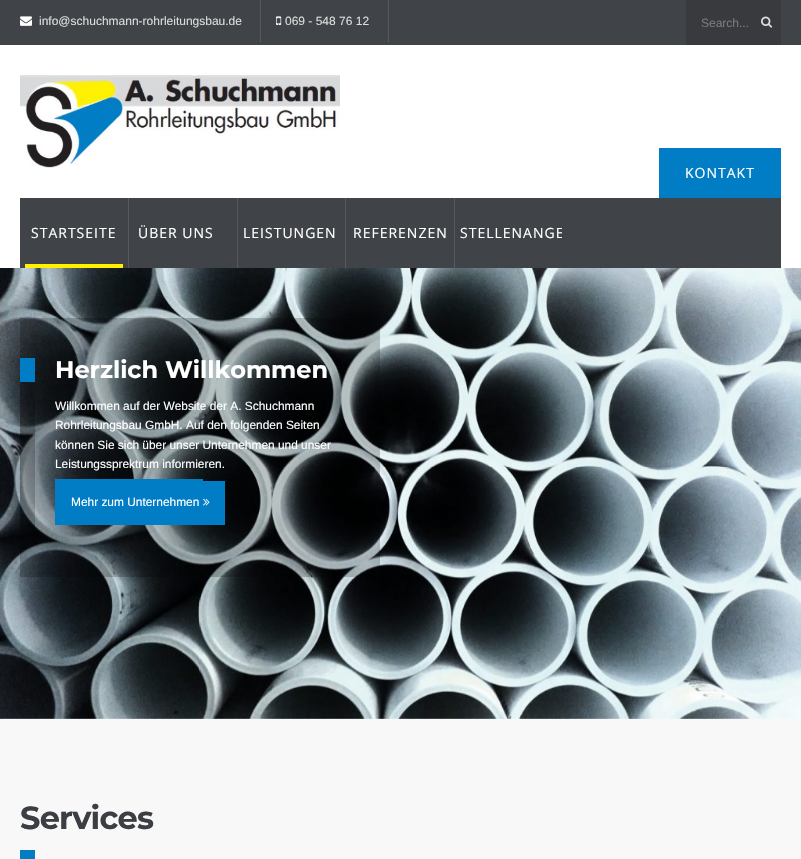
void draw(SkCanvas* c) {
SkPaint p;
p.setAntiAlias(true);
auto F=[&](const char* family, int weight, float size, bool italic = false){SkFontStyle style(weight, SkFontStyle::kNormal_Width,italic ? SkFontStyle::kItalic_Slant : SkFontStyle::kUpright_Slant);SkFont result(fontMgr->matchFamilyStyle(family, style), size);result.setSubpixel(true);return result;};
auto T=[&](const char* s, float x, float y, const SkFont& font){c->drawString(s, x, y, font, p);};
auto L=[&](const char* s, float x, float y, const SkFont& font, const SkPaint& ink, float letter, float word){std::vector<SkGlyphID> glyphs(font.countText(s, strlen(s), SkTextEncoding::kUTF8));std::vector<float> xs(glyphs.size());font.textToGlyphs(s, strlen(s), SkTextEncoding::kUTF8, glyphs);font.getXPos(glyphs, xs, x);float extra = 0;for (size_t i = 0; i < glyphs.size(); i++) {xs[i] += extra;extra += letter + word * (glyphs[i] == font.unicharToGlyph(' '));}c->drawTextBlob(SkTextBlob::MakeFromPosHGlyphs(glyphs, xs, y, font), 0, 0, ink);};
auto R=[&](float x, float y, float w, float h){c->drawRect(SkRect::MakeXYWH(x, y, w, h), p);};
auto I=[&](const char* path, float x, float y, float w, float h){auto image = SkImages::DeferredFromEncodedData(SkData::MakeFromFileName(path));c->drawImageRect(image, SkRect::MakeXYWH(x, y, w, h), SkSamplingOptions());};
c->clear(0xffffffff);
p.setColor(0xff404347);
R(0,0,801,45);
p.setColor(0xff595959);
R(260,0,1,42);
I("1.png",20,16,12,10);
auto f1 = F("Liberation Sans",400,12);
p.setColor(0xffdddddd);
T("info@schuchmann-rohrleitungsbau.de",39,25,f1);
p.setColor(0xff595959);
R(388,0,1,42);
I("2.png",276,16,6,9);
p.setColor(0xffdddddd);
T("069 - 548 76 12",285,25,f1);
p.setColor(0xff383a3e);
R(686,0,95,45);
p.setColor(0xff7a7b7e);
T("Search...",701,27,f1);
I("3.png",761,16,12,12);
I("4.png",20,75,320,93);
p.setColor(0xff017dc5);
R(659,148,122,50);
auto f2 = F("Open Sans",400,14);
p.setColor(0xffffffff);
L("KONTAKT",685,178,f2,p,1,0);
p.setColor(0xff404347);
R(20,198,761,70);
p.setColor(0xfffff100);
R(25,264,98,4);
p.setColor(0xffffffff);
L("STARTSEITE",31,238,f2,p,1,0);
p.setColor(0xff595959);
R(128,198,1,70);
p.setColor(0xffffffff);
L("ÜBER UNS",138,238,f2,p,1,0);
p.setColor(0xff595959);
R(237,198,1,70);
p.setColor(0xffffffff);
L("LEISTUNGEN",243,238,f2,p,1,0);
p.setColor(0xff595959);
R(345,198,1,70);
p.setColor(0xffffffff);
L("REFERENZEN",353,238,f2,p,1,0);
p.setColor(0xff595959);
R(454,198,1,70);
c->save();
c->clipRect(SkRect::MakeXYWH(455,198,107,70));
p.setColor(0xffffffff);
L("STELLENANGE",460,238,f2,p,1,0);
c->restore();
I("5.png",0,268,801,451);
p.setColor(0x36000000);
R(20,318,360,259);
p.setColor(0xff017dc5);
R(20,358,15,24);
auto f3 = F("Montserrat",700,24);
p.setColor(0xffffffff);
T("Herzlich Willkommen",55,378,f3);
p.setColor(0x33000000);
R(20,382,15,149);
auto f4 = F("Liberation Sans",400,11.9);
p.setColor(0xffffffff);
T("Willkommen auf der Website der A. Schuchmann",55,410,f4);
T("Rohrleitungsbau GmbH. Auf den folgenden Seiten",55,429,f4);
T("können Sie sich über unser Unternehmen und unser",55,449,f4);
T("Leistungssprektrum informieren.",55,468,f4);
p.setColor(0xff017dc5);
R(55,479,148,46);
R(203,481,22,44);
p.setColor(0xffffffff);
T("Mehr zum Unternehmen",71,506,f4);
I("6.png",203,498,7,8);
p.setColor(0xfff8f8f8);
R(0,719,801,140);
auto f5 = F("Montserrat",700,32);
p.setColor(0xff3b3e42);
L("Services",20,829,f5,p,-.75,0);
p.setColor(0xff017dc5);
R(20,850,15,9);
}
